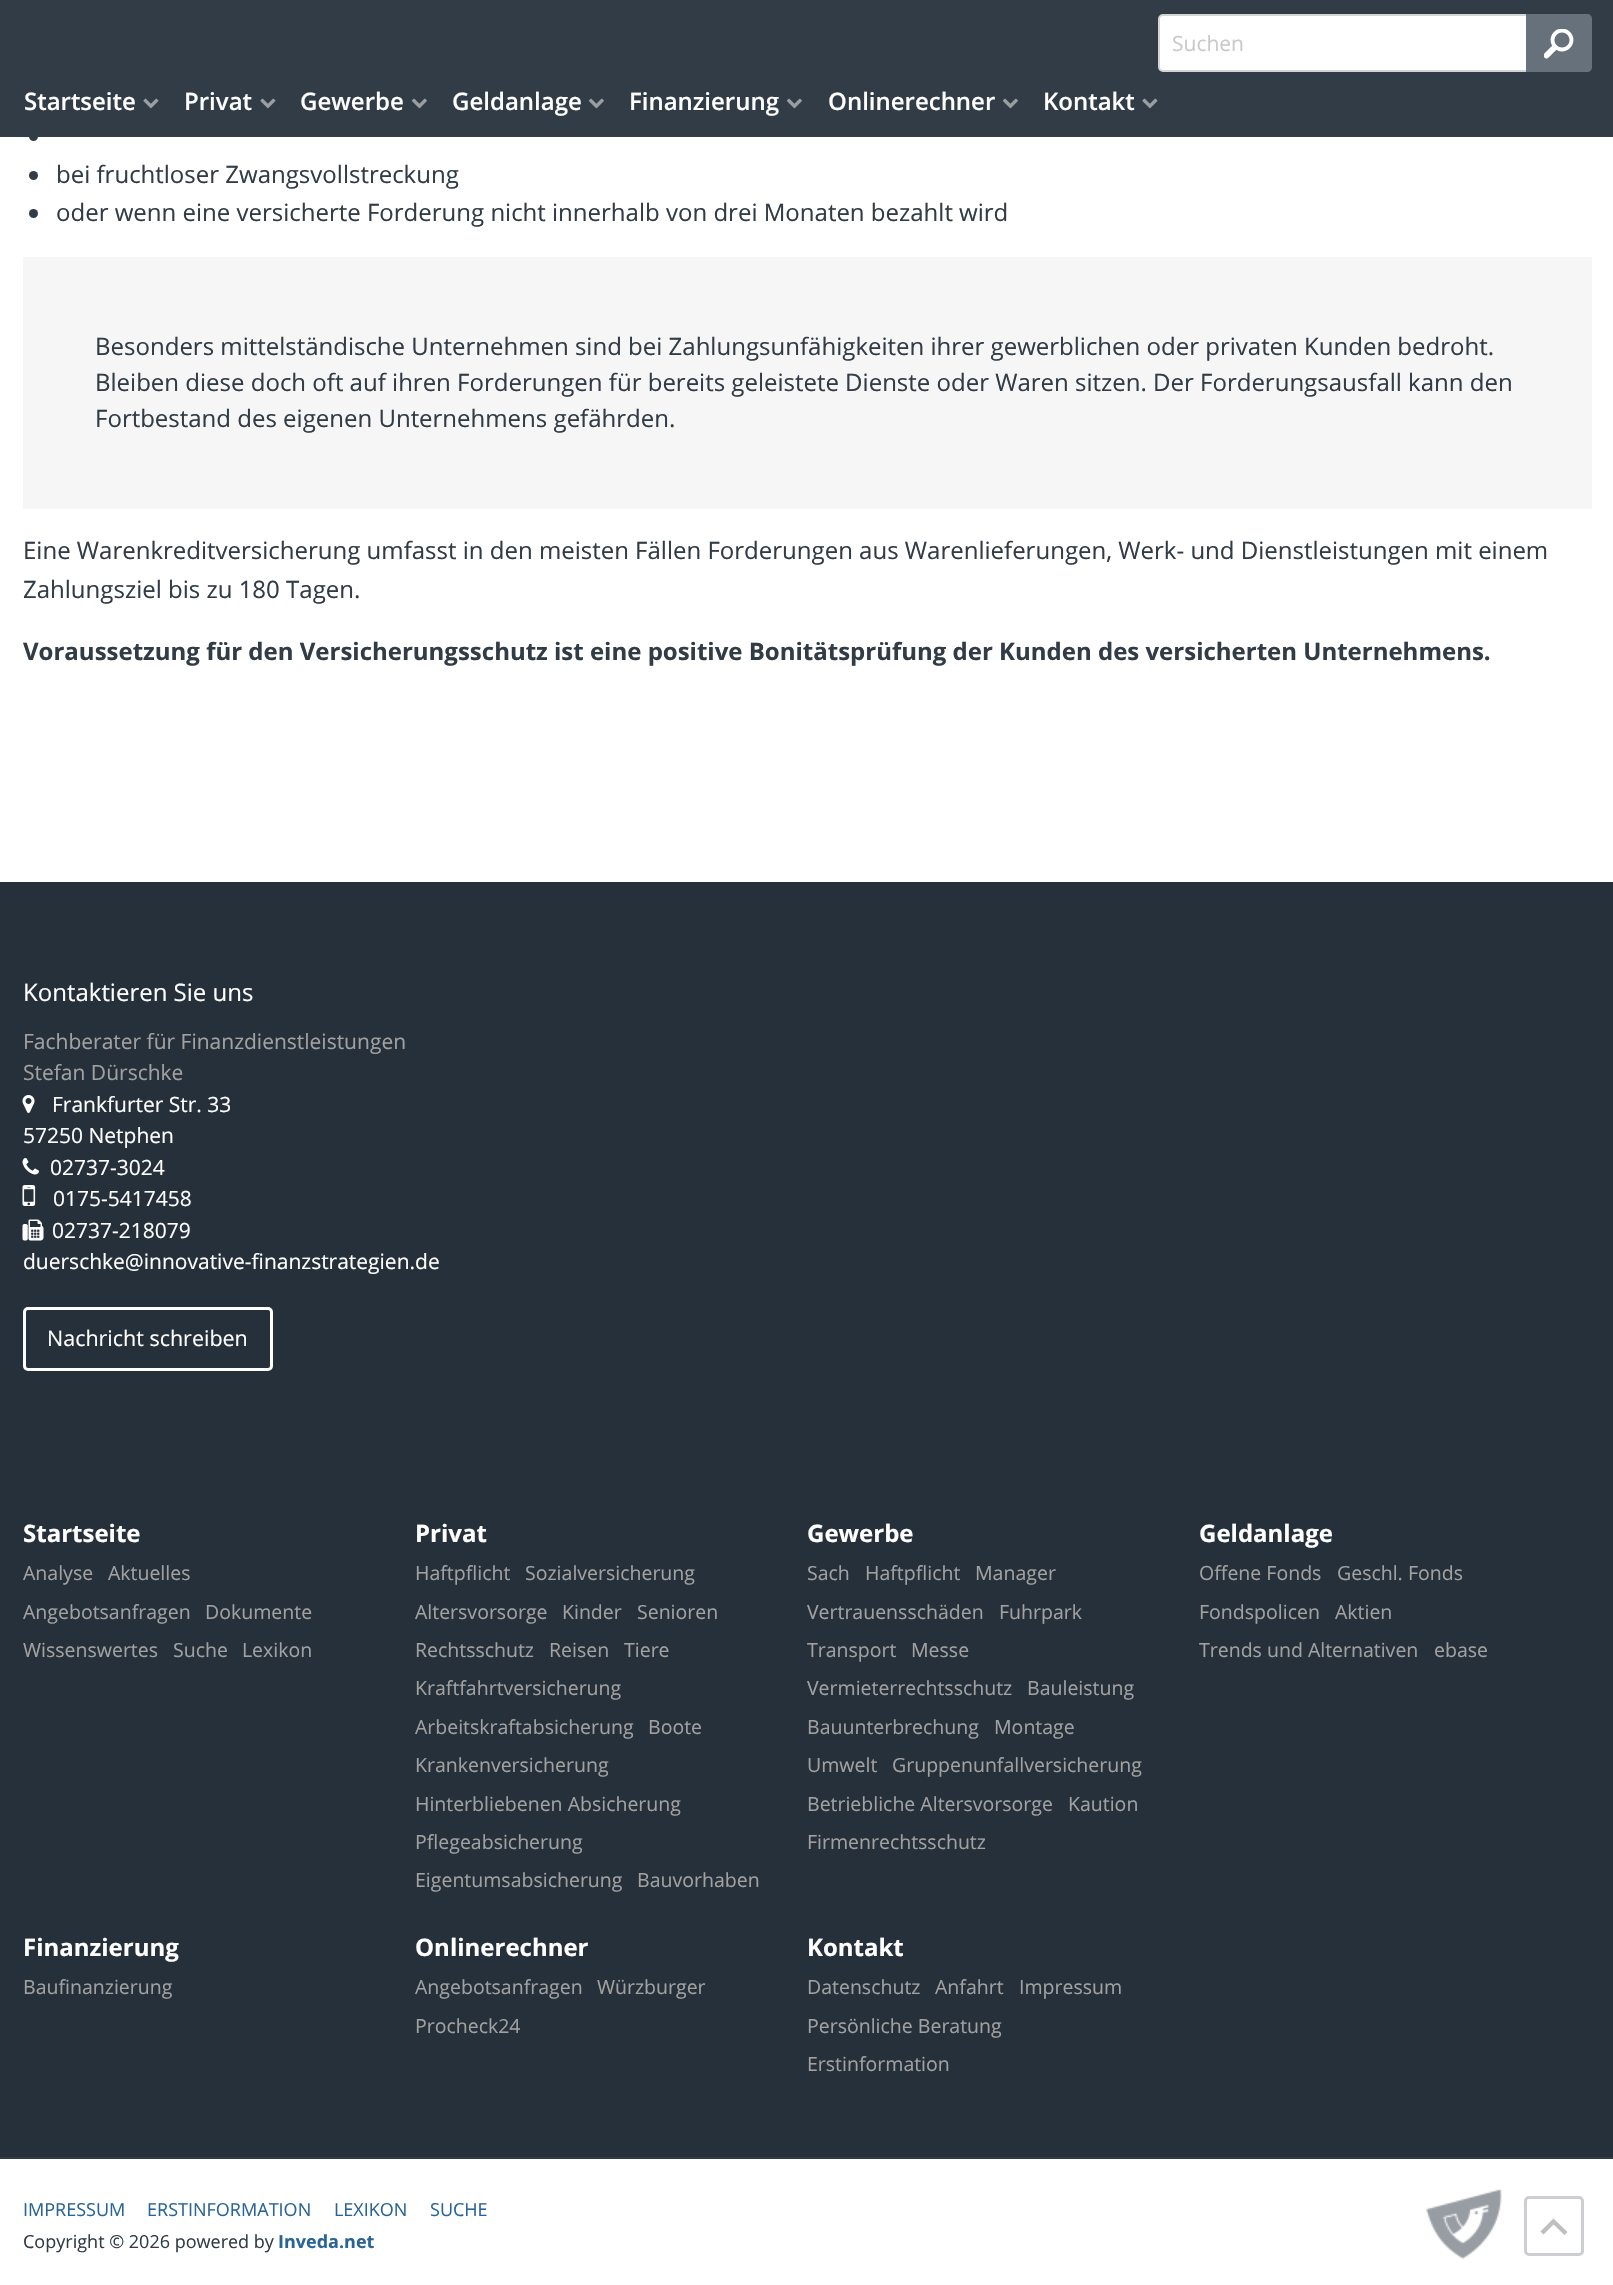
void draw(SkCanvas* c) {
SkPaint p;
p.setAntiAlias(true);
auto F=[&](const char* family, int weight, float size, bool italic = false){SkFontStyle style(weight, SkFontStyle::kNormal_Width,italic ? SkFontStyle::kItalic_Slant : SkFontStyle::kUpright_Slant);SkFont result(fontMgr->matchFamilyStyle(family, style), size);result.setSubpixel(true);return result;};
auto T=[&](const char* s, float x, float y, const SkFont& font){c->drawString(s, x, y, font, p);};
auto R=[&](float x, float y, float w, float h){c->drawRect(SkRect::MakeXYWH(x, y, w, h), p);};
auto I=[&](const char* path, float x, float y, float w, float h){auto image = SkImages::DeferredFromEncodedData(SkData::MakeFromFileName(path));c->drawImageRect(image, SkRect::MakeXYWH(x, y, w, h), SkSamplingOptions());};
auto P=[&](const char* data, bool evenOdd = false){SkPath result = *SkParsePath::FromSVGString(data);if (evenOdd) result.setFillType(SkPathFillType::kEvenOdd);return result;};
c->clear(0xffffffff);
p.setColor(0xff323c46);
c->drawCircle(33.5,136.5,4.5,p);
R(0,0,1613,137);
p.setColor(0xffffffff);
c->drawRoundRect(SkRect::MakeXYWH(1159,15,430,56),4,4,p);
p.setStroke(true);
p.setStrokeWidth(2);
p.setColor(0xffd4d4d4);
c->drawRoundRect(SkRect::MakeXYWH(1159,15,430,56),4,4,p);
auto f1 = F("Open Sans",400,21);
p.setStroke(false);
p.setColor(0xffcacaca);
T("Suchen",1172,51,f1);
p.setColor(0xff67717b);
c->drawPath(P("M1526 14h61c3 0 5 2 5 5v48c0 3-2 5-5 5h-61z"),p);
c->save();
c->clipRect(SkRect::MakeXYWH(1544,29,30,30));
p.setStroke(true);
p.setStrokeWidth(6);
p.setStrokeCap(SkPaint::kRound_Cap);
p.setColor(0xffffffff);
c->drawPath(P("M1554 48l-7.5 7.5"),p);
p.setStrokeWidth(3.8);
p.setStrokeCap(SkPaint::kButt_Cap);
c->drawCircle(1562,40,9.5,p);
c->restore();
auto f2 = F("Open Sans",600,24);
p.setStroke(false);
T("Startseite",24,110,f2);
I("1.png",143,98,16,11);
T("Privat",184,110,f2);
I("1.png",260,98,16,11);
T("Gewerbe",300,110,f2);
I("2.png",411,98,16,11);
T("Geldanlage",452,110,f2);
I("2.png",588,98,16,11);
T("Finanzierung",629,110,f2);
I("2.png",786,98,16,11);
T("Onlinerechner",828,110,f2);
I("2.png",1002,98,16,11);
T("Kontakt",1043,110,f2);
I("1.png",1142,98,16,11);
p.setColor(0xff323c46);
c->drawCircle(33.5,175.5,4.5,p);
auto f3 = F("Open Sans",400,24);
T("bei fruchtloser Zwangsvollstreckung",56,183,f3);
c->drawCircle(33.5,213.5,4.5,p);
T("oder wenn eine versicherte Forderung nicht innerhalb von drei Monaten bezahlt wird",56,221,f3);
p.setColor(0xfff6f6f6);
R(23,257,1569,252);
p.setColor(0xff323c46);
T("Besonders mittelständische Unternehmen sind bei Zahlungsunfähigkeiten ihrer gewerblichen oder privaten Kunden bedroht.",95,355,f3);
T("Bleiben diese doch oft auf ihren Forderungen für bereits geleistete Dienste oder Waren sitzen. Der Forderungsausfall kann den",95,391,f3);
T("Fortbestand des eigenen Unternehmens gefährden.",95,427,f3);
T("Eine Warenkreditversicherung umfasst in den meisten Fällen Forderungen aus Warenlieferungen, Werk- und Dienstleistungen mit einem",23,559,f3);
T("Zahlungsziel bis zu 180 Tagen.",23,598,f3);
auto f4 = F("Open Sans",700,24);
T("Voraussetzung für den Versicherungsschutz ist eine positive Bonitätsprüfung der Kunden des versicherten Unternehmens.",23,660,f4);
p.setColor(0xff26303a);
R(0,882,1613,1275);
p.setColor(0xffffffff);
T("Kontaktieren Sie uns",23,1001,f3);
p.setColor(0xffa1a1a1);
T("Fachberater für Finanzdienstleistungen",23,1049,f1);
T("Stefan Dürschke",23,1080,f1);
I("3.png",22,1095,13,18);
p.setColor(0xffffffff);
T("Frankfurter Str. 33",52,1112,f1);
T("57250 Netphen",23,1143,f1);
I("4.png",22,1158,17,17);
T("02737-3024",50,1175,f1);
I("5.png",22,1185,14,21);
T("0175-5417458",53,1206,f1);
I("6.png",22,1219,22,22);
T("02737-218079",52,1238,f1);
T("duerschke@innovative-finanzstrategien.de",23,1269,f1);
p.setStroke(true);
p.setStrokeWidth(3);
c->drawRoundRect(SkRect::MakeXYWH(24.5,1308.5,247,61),3.5,3.5,p);
auto f5 = F("Open Sans",400,21.5);
p.setStroke(false);
T("Nachricht schreiben",47,1346,f5);
T("Startseite",23,1542,f4);
auto f6 = F("Open Sans",400,19.5);
p.setColor(0xffa1a1a1);
T("Analyse",23,1580,f6);
T("Aktuelles",108,1580,f6);
T("Angebotsanfragen",23,1619,f6);
T("Dokumente",205,1619,f6);
T("Wissenswertes",23,1657,f6);
T("Suche",173,1657,f6);
T("Lexikon",242,1657,f6);
p.setColor(0xffffffff);
T("Privat",415,1542,f4);
p.setColor(0xffa1a1a1);
T("Haftpflicht",415,1580,f6);
T("Sozialversicherung",525,1580,f6);
T("Altersvorsorge",415,1619,f6);
T("Kinder",562,1619,f6);
T("Senioren",637,1619,f6);
T("Rechtsschutz",415,1657,f6);
T("Reisen",549,1657,f6);
T("Tiere",624,1657,f6);
T("Kraftfahrtversicherung",415,1695,f6);
T("Arbeitskraftabsicherung",415,1734,f6);
T("Boote",648,1734,f6);
T("Krankenversicherung",415,1772,f6);
T("Hinterbliebenen Absicherung",415,1811,f6);
T("Pflegeabsicherung",415,1849,f6);
T("Eigentumsabsicherung",415,1887,f6);
T("Bauvorhaben",637,1887,f6);
p.setColor(0xffffffff);
T("Gewerbe",807,1542,f4);
p.setColor(0xffa1a1a1);
T("Sach",807,1580,f6);
T("Haftpflicht",865,1580,f6);
T("Manager",975,1580,f6);
T("Vertrauensschäden",807,1619,f6);
T("Fuhrpark",999,1619,f6);
T("Transport",807,1657,f6);
T("Messe",911,1657,f6);
T("Vermieterrechtsschutz",807,1695,f6);
T("Bauleistung",1027,1695,f6);
T("Bauunterbrechung",807,1734,f6);
T("Montage",994,1734,f6);
T("Umwelt",807,1772,f6);
T("Gruppenunfallversicherung",892,1772,f6);
T("Betriebliche Altersvorsorge",807,1811,f6);
T("Kaution",1068,1811,f6);
T("Firmenrechtsschutz",807,1849,f6);
p.setColor(0xffffffff);
T("Geldanlage",1199,1542,f4);
p.setColor(0xffa1a1a1);
T("Offene Fonds",1199,1580,f6);
T("Geschl. Fonds",1337,1580,f6);
T("Fondspolicen",1199,1619,f6);
T("Aktien",1335,1619,f6);
T("Trends und Alternativen",1199,1657,f6);
T("ebase",1434,1657,f6);
p.setColor(0xffffffff);
T("Finanzierung",23,1956,f4);
p.setColor(0xffa1a1a1);
T("Baufinanzierung",23,1994,f6);
p.setColor(0xffffffff);
T("Onlinerechner",415,1956,f4);
p.setColor(0xffa1a1a1);
T("Angebotsanfragen",415,1994,f6);
T("Würzburger",597,1994,f6);
T("Procheck24",415,2033,f6);
p.setColor(0xffffffff);
T("Kontakt",807,1956,f4);
p.setColor(0xffa1a1a1);
T("Datenschutz",807,1994,f6);
T("Anfahrt",935,1994,f6);
T("Impressum",1019,1994,f6);
T("Persönliche Beratung",807,2033,f6);
T("Erstinformation",807,2071,f6);
p.setColor(0xff323c46);
R(0,2157,1613,2);
auto f7 = F("Open Sans",400,18);
p.setColor(0xff286496);
T("IMPRESSUM",23,2216,f7);
T("ERSTINFORMATION",147,2216,f7);
T("LEXIKON",334,2216,f7);
T("SUCHE",430,2216,f7);
p.setColor(0xff323c46);
T("Copyright © 2026 powered by",23,2248,f7);
auto f8 = F("Open Sans",700,18);
p.setColor(0xff286496);
T("Inveda.net",278,2248,f8);
I("7.png",1426,2189,76,71);
p.setStroke(true);
p.setStrokeWidth(4.4);
p.setColor(0xffbfbfbf);
c->drawPath(P("M1542 2233l11.5-11.5l12.5 12"),p);
p.setStrokeWidth(3);
p.setColor(0xffccced1);
c->drawRoundRect(SkRect::MakeXYWH(1525.5,2197.5,57,57),3.5,3.5,p);
}
